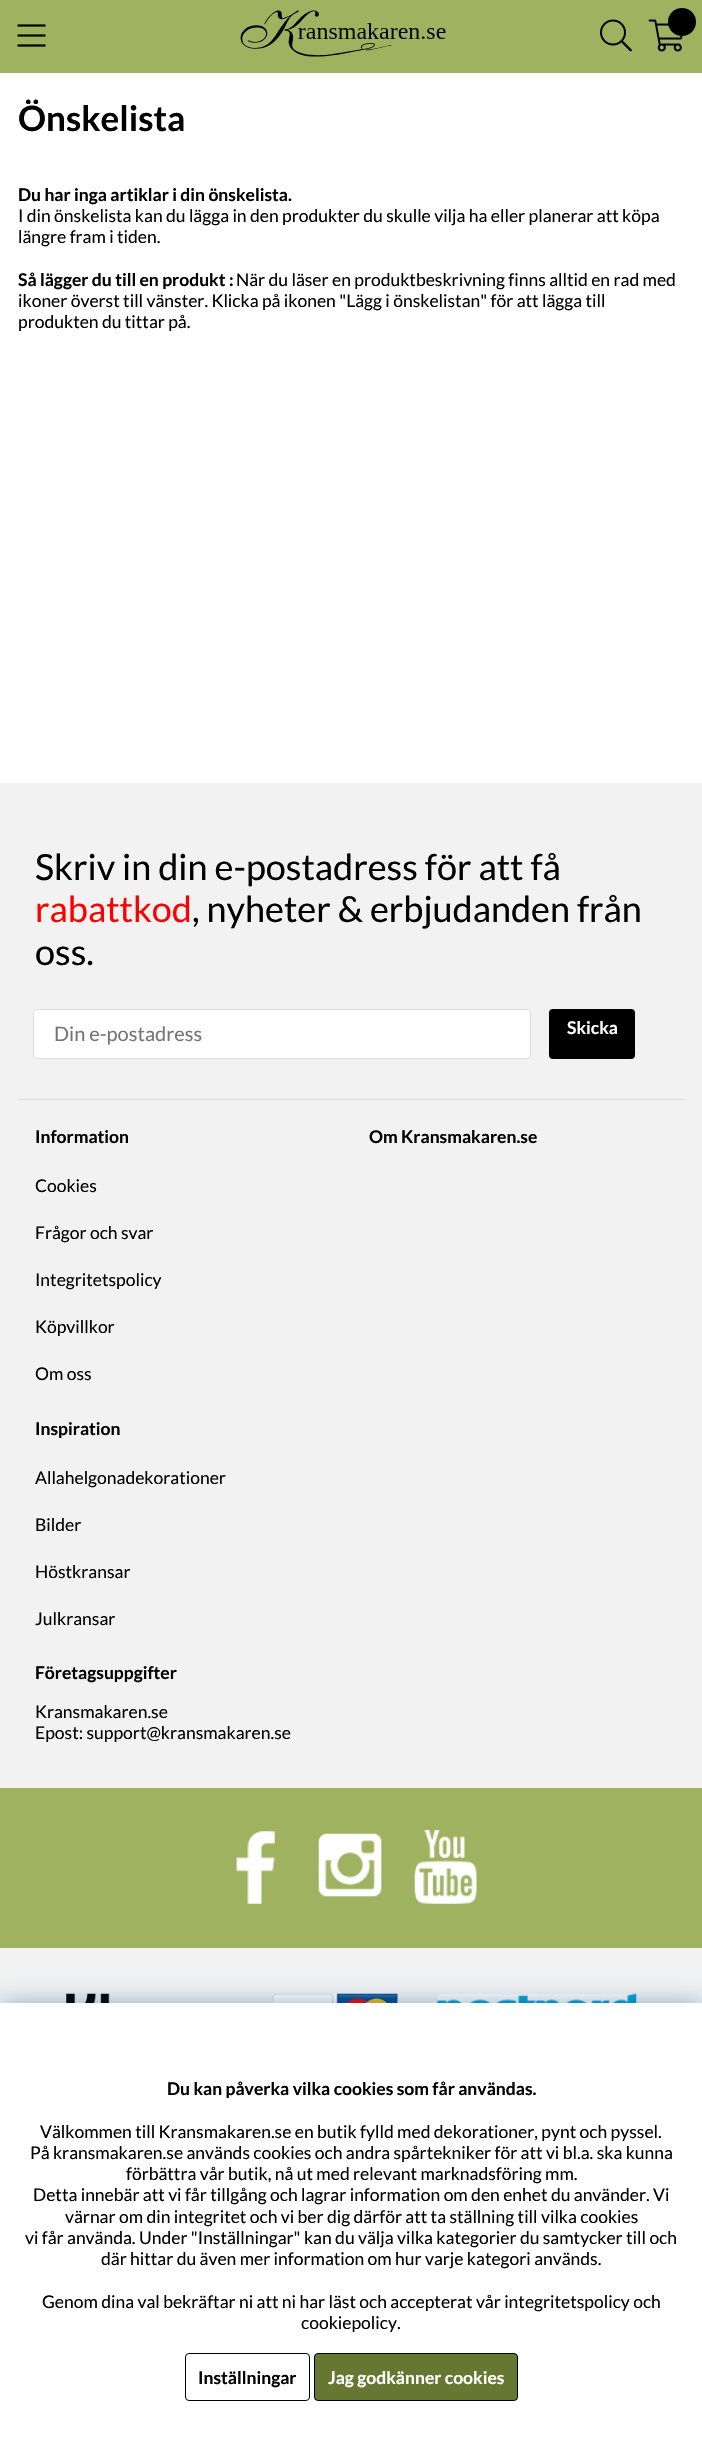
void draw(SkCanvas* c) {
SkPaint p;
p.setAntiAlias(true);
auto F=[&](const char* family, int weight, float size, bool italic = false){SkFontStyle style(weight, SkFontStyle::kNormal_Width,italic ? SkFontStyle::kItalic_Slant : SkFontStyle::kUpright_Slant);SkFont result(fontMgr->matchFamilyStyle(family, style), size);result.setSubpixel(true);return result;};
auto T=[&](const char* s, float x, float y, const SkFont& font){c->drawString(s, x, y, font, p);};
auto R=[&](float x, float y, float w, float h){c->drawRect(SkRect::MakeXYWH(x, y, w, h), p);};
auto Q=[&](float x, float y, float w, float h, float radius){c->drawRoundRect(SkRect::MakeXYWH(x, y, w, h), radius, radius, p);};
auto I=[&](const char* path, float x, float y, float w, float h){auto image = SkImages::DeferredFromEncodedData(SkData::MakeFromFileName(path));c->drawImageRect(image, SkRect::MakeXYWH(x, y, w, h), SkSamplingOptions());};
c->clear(0xffffffff);
p.setColor(0xff9eb25f);
R(0,0,702,73);
I("1.png",17,24,29,23);
I("2.png",240,10,206,47);
I("3.png",600,19,32,33);
I("4.png",648,19,35,33);
p.setColor(0xff000000);
c->drawCircle(682,22,14,p);
auto f1 = F("Lato",700,35);
T("Önskelista",18,131,f1);
auto f2 = F("Lato",700,17.5);
T("Du har inga artiklar i din önskelista.",18,201,f2);
auto f3 = F("Lato",400,17.5);
T("I din önskelista kan du lägga in den produkter du skulle vilja ha eller planerar att köpa",18,222,f3);
T("längre fram i tiden.",18,243,f3);
T("Så lägger du till en produkt :",18,286,f2);
T("När du läser en produktbeskrivning finns alltid en rad med",236,286,f3);
T("ikoner överst till vänster. Klicka på ikonen \"Lägg i önskelistan\" för att lägga till",18,307,f3);
T("produkten du tittar på.",18,328,f3);
p.setColor(0xfff2f2f2);
R(0,783,702,1220);
p.setColor(0xffdddddd);
R(18,1099,667,1);
auto f4 = F("Lato",400,36);
p.setColor(0xff000000);
T("Skriv in din e-postadress för att få",35,880,f4);
p.setColor(0xffff0000);
T("rabattkod",35,922,f4);
p.setColor(0xff000000);
T(", nyheter & erbjudanden från",192,922,f4);
T("oss.",35,965,f4);
p.setColor(0xffffffff);
c->drawRoundRect(SkRect::MakeXYWH(33.5,1009.5,497,49),3.5,3.5,p);
p.setStroke(true);
p.setStrokeWidth(1);
p.setColor(0xffdddddd);
c->drawRoundRect(SkRect::MakeXYWH(33.5,1009.5,497,49),3.5,3.5,p);
auto f5 = F("Lato",400,20);
p.setStroke(false);
p.setColor(0xff757575);
T("Din e-postadress",54,1041,f5);
p.setColor(0xff000000);
Q(549,1009,86,50,4);
p.setColor(0xffffffff);
T("Skicka",567,1034,f2);
p.setColor(0xff000000);
T("Information",35,1143,f2);
T("Cookies",35,1192,f3);
T("Frågor och svar",35,1239,f3);
T("Integritetspolicy",35,1286,f3);
T("Köpvillkor",35,1333,f3);
T("Om oss",35,1380,f3);
T("Om Kransmakaren.se",369,1143,f2);
T("Inspiration",35,1435,f2);
T("Allahelgonadekorationer",35,1484,f3);
T("Bilder",35,1531,f3);
T("Höstkransar",35,1578,f3);
T("Julkransar",35,1625,f3);
T("Företagsuppgifter",35,1679,f2);
T("Kransmakaren.se",35,1718,f3);
T("Epost: support@kransmakaren.se",35,1739,f3);
p.setColor(0xff9eb25f);
R(0,1788,702,160);
I("5.png",236,1831,39,73);
I("6.png",318,1833,64,64);
I("7.png",414,1830,63,74);
I("8.png",66,1993,44,10);
I("9.png",272,1993,126,10);
I("10.png",437,1993,200,10);
p.setColor(0x7000427a);
p.setMaskFilter(SkMaskFilter::MakeBlur(kNormal_SkBlurStyle, 12.5));
c->drawRect(SkRect::MakeXYWH(0,2004,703,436),p);
p.setMaskFilter(nullptr);
p.setColor(0xffffffff);
R(0,2003,702,435);
p.setColor(0xff000000);
T("Du kan påverka vilka cookies som får användas.",167,2095,f2);
T("Välkommen till Kransmakaren.se en butik fylld med dekorationer, pynt och pyssel.",40,2138,f3);
T("På kransmakaren.se används cookies och andra spårtekniker för att vi bl.a. ska kunna",30,2159,f3);
T("förbättra vår butik, nå ut med relevant marknadsföring mm.",126,2180,f3);
T("Detta innebär att vi får tillgång och lagrar information om den enhet du använder. Vi",33,2201,f3);
T("värnar om din integritet och vi ber dig därför att ta ställning till vilka cookies",65,2223,f3);
T("vi får använda. Under \"Inställningar\" kan du välja vilka kategorier du samtycker till och",25,2244,f3);
T("där hittar du även mer information om hur varje kategori används.",101,2265,f3);
T("Genom dina val bekräftar ni att ni har läst och accepterat vår integritetspolicy och",42,2308,f3);
T("cookiepolicy.",301,2329,f3);
p.setStroke(true);
c->drawRoundRect(SkRect::MakeXYWH(185.5,2353.5,124,47),3.5,3.5,p);
p.setStroke(false);
T("Inställningar",198,2384,f2);
p.setColor(0xff667732);
c->drawRoundRect(SkRect::MakeXYWH(314.5,2353.5,203,47),3.5,3.5,p);
p.setStroke(true);
p.setColor(0xff000000);
c->drawRoundRect(SkRect::MakeXYWH(314.5,2353.5,203,47),3.5,3.5,p);
p.setStroke(false);
p.setColor(0xffffffff);
T("Jag godkänner cookies",328,2384,f2);
}
